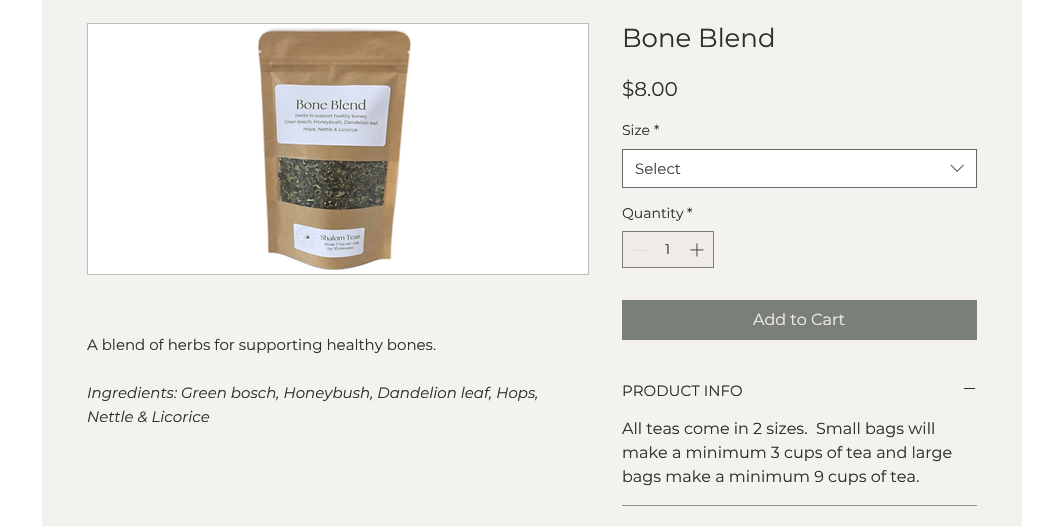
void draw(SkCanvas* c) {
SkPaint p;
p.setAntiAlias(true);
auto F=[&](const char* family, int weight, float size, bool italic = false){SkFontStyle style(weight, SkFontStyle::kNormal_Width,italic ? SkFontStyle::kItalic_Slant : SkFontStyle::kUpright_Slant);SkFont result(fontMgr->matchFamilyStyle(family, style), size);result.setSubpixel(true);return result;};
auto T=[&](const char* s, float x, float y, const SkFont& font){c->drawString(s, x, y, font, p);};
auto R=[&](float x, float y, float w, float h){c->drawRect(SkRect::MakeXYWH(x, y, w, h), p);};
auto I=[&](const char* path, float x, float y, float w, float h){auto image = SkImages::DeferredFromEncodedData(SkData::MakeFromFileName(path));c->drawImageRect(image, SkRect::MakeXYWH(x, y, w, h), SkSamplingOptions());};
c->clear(0xffffffff);
p.setColor(0xfff4f2ee);
R(42,0,980,526);
p.setStroke(true);
p.setStrokeWidth(1);
p.setColor(0xffbfbdb9);
c->drawRect(SkRect::MakeXYWH(87.5,23.5,501,251),p);
I("1.png",88,24,500,250);
auto f1 = F("Montserrat",400,15);
p.setStroke(false);
p.setColor(0xff302f2e);
T("A blend of herbs for supporting healthy bones.",87,350,f1);
auto f2 = F("Montserrat",400,15,true);
T("Ingredients: Green bosch, Honeybush, Dandelion leaf, Hops,",87,398,f2);
T("Nettle & Licorice",87,422,f2);
auto f3 = F("Montserrat",400,26);
T("Bone Blend",622,47,f3);
auto f4 = F("Montserrat",400,20);
T("$8.00",622,96,f4);
auto f5 = F("Montserrat",400,14);
T("Size",622,135,f5);
T("*",654,135,f5);
p.setColor(0xffffffff);
c->drawRect(SkRect::MakeXYWH(622.5,149.5,354,38),p);
p.setStroke(true);
p.setColor(0xff666666);
c->drawRect(SkRect::MakeXYWH(622.5,149.5,354,38),p);
p.setStroke(false);
p.setColor(0xff444444);
T("Select",635,174,f1);
I("2.png",950,164,14,8);
p.setColor(0xff302f2e);
T("Quantity",622,218,f5);
T("*",687,218,f5);
p.setColor(0xffefece7);
c->drawRect(SkRect::MakeXYWH(622.5,231.5,91,36),p);
p.setStroke(true);
p.setColor(0xff7c7b78);
c->drawRect(SkRect::MakeXYWH(622.5,231.5,91,36),p);
p.setStroke(false);
p.setColor(0xffdbdad7);
R(634,250,13,1);
p.setColor(0xff302f2e);
T("1",665,254,f5);
I("3.png",690,243,14,14);
p.setColor(0xff7a8077);
R(622,300,355,40);
auto f6 = F("Montserrat",400,16);
p.setColor(0xffefece7);
T("Add to Cart",753,325,f6);
p.setColor(0xff8f8e8b);
R(622,505,355,1);
p.setColor(0xff302f2e);
T("PRODUCT INFO",622,396,f1);
R(964,388,11,1);
T("All teas come in 2 sizes.  Small bags will",622,434,f6);
T("make a minimum 3 cups of tea and large",622,458,f6);
T("bags make a minimum 9 cups of tea.",622,482,f6);
}
